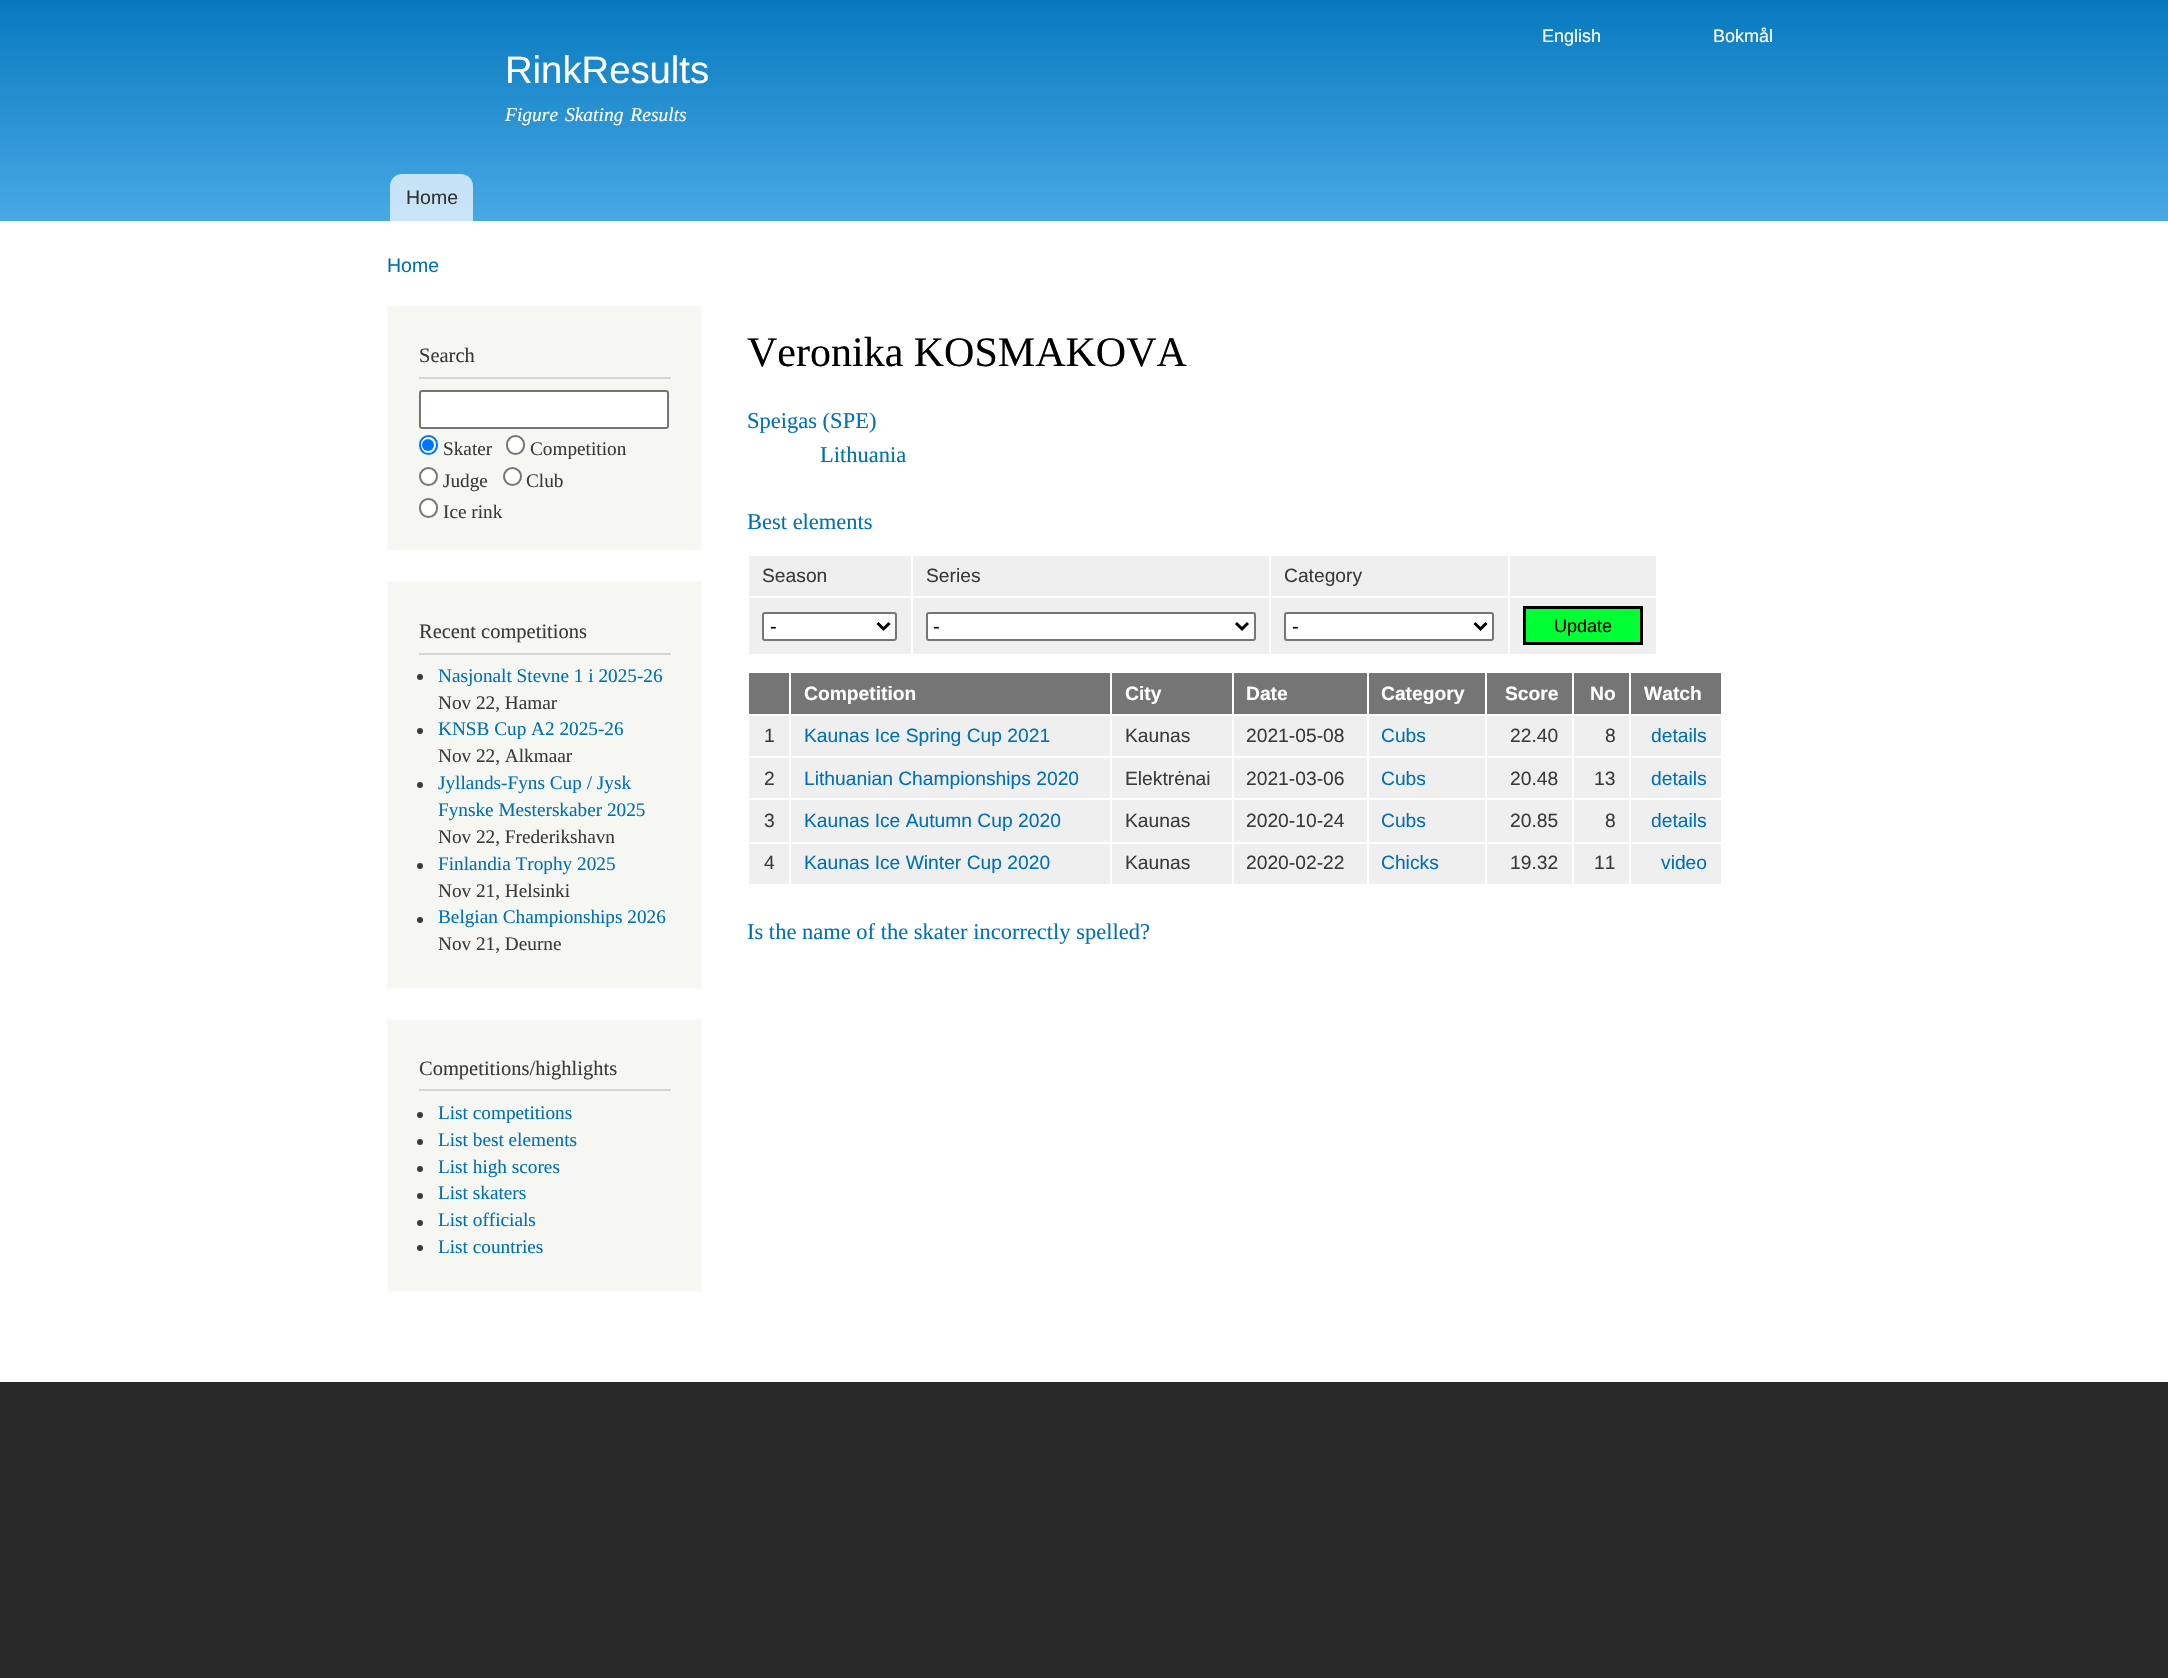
void draw(SkCanvas* c) {
SkPaint p;
p.setAntiAlias(true);
auto F=[&](const char* family, int weight, float size, bool italic = false){SkFontStyle style(weight, SkFontStyle::kNormal_Width,italic ? SkFontStyle::kItalic_Slant : SkFontStyle::kUpright_Slant);SkFont result(fontMgr->matchFamilyStyle(family, style), size);result.setSubpixel(true);return result;};
auto T=[&](const char* s, float x, float y, const SkFont& font){c->drawString(s, x, y, font, p);};
auto L=[&](const char* s, float x, float y, const SkFont& font, const SkPaint& ink, float letter, float word){std::vector<SkGlyphID> glyphs(font.countText(s, strlen(s), SkTextEncoding::kUTF8));std::vector<float> xs(glyphs.size());font.textToGlyphs(s, strlen(s), SkTextEncoding::kUTF8, glyphs);font.getXPos(glyphs, xs, x);float extra = 0;for (size_t i = 0; i < glyphs.size(); i++) {xs[i] += extra;extra += letter + word * (glyphs[i] == font.unicharToGlyph(' '));}c->drawTextBlob(SkTextBlob::MakeFromPosHGlyphs(glyphs, xs, y, font), 0, 0, ink);};
auto R=[&](float x, float y, float w, float h){c->drawRect(SkRect::MakeXYWH(x, y, w, h), p);};
auto P=[&](const char* data, bool evenOdd = false){SkPath result = *SkParsePath::FromSVGString(data);if (evenOdd) result.setFillType(SkPathFillType::kEvenOdd);return result;};
c->clear(0xff292929);
p.setColor(0xffffffff);
R(0,221,2168,1161);
{
const SkColor colors[] = {0xff0779bf,0xff48a9e4};
const float stops[] = {0,1};
const SkPoint ends[] = {{1085,0}, {1085,221}};
p.setShader(SkGradientShader::MakeLinear(ends, colors, stops, 2, SkTileMode::kClamp));
p.setAlpha(255);
}
R(0,0,2168,221);
auto f1 = F("Liberation Sans",400,18);
p.setShader(nullptr);
p.setColor(0xfffffeff);
T("English",1542,42,f1);
T("Bokmål",1713,42,f1);
auto f2 = F("Liberation Sans",400,38.25);
T("RinkResults",505,83,f2);
auto f3 = F("Liberation Serif",400,19.5,true);
L("Figure Skating Results",505,121,f3,p,0,2);
p.setColor(0xb3ffffff);
c->drawPath(P("M402 174h59c6.5 0 12 5.5 12 12v35h-83v-35c0-6.5 5.5-12 12-12z"),p);
auto f4 = F("Liberation Sans",400,19.5);
p.setColor(0xff333333);
T("Home",406,204,f4);
p.setColor(0xff0071b3);
T("Home",387,272,f4);
p.setColor(0xfff6f6f2);
c->drawRect(SkRect::MakeXYWH(388,306,313,244),p);
p.setStroke(true);
p.setStrokeWidth(2);
p.setColor(0xfff9f9f9);
c->drawRect(SkRect::MakeXYWH(388,306,313,244),p);
p.setStroke(false);
p.setColor(0xffd6d6d6);
R(419,377,252,2);
auto f5 = F("Liberation Serif",400,20.5);
p.setColor(0xff3b3b3b);
T("Search",419,362,f5);
p.setColor(0xffffffff);
c->drawRoundRect(SkRect::MakeXYWH(420,391,248,37),2,2,p);
p.setStroke(true);
p.setColor(0xff767676);
c->drawRoundRect(SkRect::MakeXYWH(420,391,248,37),2,2,p);
p.setStroke(false);
p.setColor(0xffffffff);
c->drawRoundRect(SkRect::MakeXYWH(420,436,17,18),8.5,8.5,p);
p.setStroke(true);
p.setColor(0xff0075ff);
c->drawRoundRect(SkRect::MakeXYWH(420,436,17,18),8.5,8.5,p);
p.setStroke(false);
c->drawCircle(428,445,6,p);
auto f6 = F("Liberation Serif",400,19.25);
p.setColor(0xff3b3b3b);
T("Skater",443,455,f6);
p.setColor(0xffffffff);
c->drawRoundRect(SkRect::MakeXYWH(507,436,17,18),8.5,8.5,p);
p.setStroke(true);
p.setColor(0xff767676);
c->drawRoundRect(SkRect::MakeXYWH(507,436,17,18),8.5,8.5,p);
p.setStroke(false);
p.setColor(0xff3b3b3b);
T("Competition",530,455,f6);
p.setColor(0xffffffff);
c->drawCircle(428.5,476.5,8.5,p);
p.setStroke(true);
p.setColor(0xff767676);
c->drawCircle(428.5,476.5,8.5,p);
p.setStroke(false);
p.setColor(0xff3b3b3b);
T("Judge",443,487,f6);
p.setColor(0xffffffff);
c->drawCircle(512.5,476.5,8.5,p);
p.setStroke(true);
p.setColor(0xff767676);
c->drawCircle(512.5,476.5,8.5,p);
p.setStroke(false);
p.setColor(0xff3b3b3b);
T("Club",526,487,f6);
p.setColor(0xffffffff);
c->drawRoundRect(SkRect::MakeXYWH(420,499,17,18),8.5,8.5,p);
p.setStroke(true);
p.setColor(0xff767676);
c->drawRoundRect(SkRect::MakeXYWH(420,499,17,18),8.5,8.5,p);
p.setStroke(false);
p.setColor(0xff3b3b3b);
T("Ice rink",443,518,f6);
p.setColor(0xfff6f6f2);
c->drawRect(SkRect::MakeXYWH(388,582,313,406),p);
p.setStroke(true);
p.setColor(0xfff9f9f9);
c->drawRect(SkRect::MakeXYWH(388,582,313,406),p);
p.setStroke(false);
p.setColor(0xffd6d6d6);
R(419,653,252,2);
p.setColor(0xff3b3b3b);
T("Recent competitions",419,638,f5);
c->drawCircle(420,677,3,p);
p.setColor(0xff0071b3);
T("Nasjonalt Stevne 1 i 2025-26",438,682,f6);
p.setColor(0xff3b3b3b);
T("Nov 22, Hamar",438,709,f6);
c->drawCircle(420,731,3,p);
p.setColor(0xff0071b3);
T("KNSB Cup A2 2025-26",438,735,f6);
p.setColor(0xff3b3b3b);
T("Nov 22, Alkmaar",438,762,f6);
c->drawCircle(420,785,3,p);
p.setColor(0xff0071b3);
T("Jyllands-Fyns Cup / Jysk",438,789,f6);
T("Fynske Mesterskaber 2025",438,816,f6);
p.setColor(0xff3b3b3b);
T("Nov 22, Frederikshavn",438,843,f6);
c->drawCircle(420,866,3,p);
p.setColor(0xff0071b3);
T("Finlandia Trophy 2025",438,870,f6);
p.setColor(0xff3b3b3b);
T("Nov 21, Helsinki",438,897,f6);
c->drawCircle(420,920,3,p);
p.setColor(0xff0071b3);
T("Belgian Championships 2026",438,923,f6);
p.setColor(0xff3b3b3b);
T("Nov 21, Deurne",438,950,f6);
p.setColor(0xfff6f6f2);
c->drawRect(SkRect::MakeXYWH(388,1020,313,271),p);
p.setStroke(true);
p.setColor(0xfff9f9f9);
c->drawRect(SkRect::MakeXYWH(388,1020,313,271),p);
p.setStroke(false);
p.setColor(0xffd6d6d6);
R(419,1089,252,2);
p.setColor(0xff3b3b3b);
T("Competitions/highlights",419,1075,f5);
c->drawCircle(420,1115,3,p);
p.setColor(0xff0071b3);
T("List competitions",438,1119,f6);
p.setColor(0xff3b3b3b);
c->drawCircle(420,1142,3,p);
p.setColor(0xff0071b3);
T("List best elements",438,1146,f6);
p.setColor(0xff3b3b3b);
c->drawCircle(420,1169,3,p);
p.setColor(0xff0071b3);
T("List high scores",438,1173,f6);
p.setColor(0xff3b3b3b);
c->drawCircle(420,1196,3,p);
p.setColor(0xff0071b3);
T("List skaters",438,1199,f6);
p.setColor(0xff3b3b3b);
c->drawCircle(420,1223,3,p);
p.setColor(0xff0071b3);
T("List officials",438,1226,f6);
p.setColor(0xff3b3b3b);
c->drawCircle(420,1248,3,p);
p.setColor(0xff0071b3);
T("List countries",438,1253,f6);
auto f7 = F("Liberation Serif",400,42);
p.setColor(0xff000000);
T("Veronika KOSMAKOVA",747,366,f7);
auto f8 = F("Liberation Serif",400,22.5);
p.setColor(0xff0071b3);
T("Speigas (SPE)",747,428,f8);
T("Lithuania",820,462,f8);
T("Best elements",747,529,f8);
p.setColor(0xffefefef);
R(749,556,907,40);
auto f9 = F("Liberation Sans",400,19.25);
p.setColor(0xff3b3b3b);
T("Season",762,582,f9);
T("Series",926,582,f9);
T("Category",1284,582,f9);
p.setColor(0xffefefef);
R(749,598,907,56);
p.setColor(0xffffffff);
c->drawRoundRect(SkRect::MakeXYWH(763,613,133,27),2,2,p);
p.setStroke(true);
p.setColor(0xff767676);
c->drawRoundRect(SkRect::MakeXYWH(763,613,133,27),2,2,p);
p.setStrokeWidth(3);
p.setColor(0xff000000);
c->drawPath(P("M877.5 623l6 6l6-6"),p);
auto f10 = F("Liberation Sans",400,20);
p.setStroke(false);
T("-",770,633,f10);
p.setColor(0xffffffff);
R(911,554,2,102);
c->drawRoundRect(SkRect::MakeXYWH(927,613,328,27),2,2,p);
p.setStroke(true);
p.setStrokeWidth(2);
p.setColor(0xff767676);
c->drawRoundRect(SkRect::MakeXYWH(927,613,328,27),2,2,p);
p.setStrokeWidth(3);
p.setColor(0xff000000);
c->drawPath(P("M1236 623l6 6l6-6"),p);
p.setStroke(false);
T("-",933,633,f10);
p.setColor(0xffffffff);
R(1269,554,2,102);
c->drawRoundRect(SkRect::MakeXYWH(1285,613,208,27),2,2,p);
p.setStroke(true);
p.setStrokeWidth(2);
p.setColor(0xff767676);
c->drawRoundRect(SkRect::MakeXYWH(1285,613,208,27),2,2,p);
p.setStrokeWidth(3);
p.setColor(0xff000000);
c->drawPath(P("M1474.5 623l6 6l6-6"),p);
p.setStroke(false);
T("-",1292,633,f10);
p.setColor(0xffffffff);
R(1508,554,2,102);
p.setColor(0xff00ff33);
c->drawRect(SkRect::MakeXYWH(1524.5,607.5,117,36),p);
p.setStroke(true);
p.setColor(0xff000000);
c->drawRect(SkRect::MakeXYWH(1524.5,607.5,117,36),p);
p.setStroke(false);
T("Update",1554,632,f1);
p.setColor(0xff757575);
R(749,673,40,41);
R(791,673,319,41);
auto f11 = F("Liberation Sans",700,19.25);
p.setColor(0xfffffeff);
T("Competition",804,700,f11);
p.setColor(0xff757575);
R(1112,673,120,41);
p.setColor(0xfffffeff);
T("City",1125,700,f11);
p.setColor(0xff757575);
R(1234,673,133,41);
p.setColor(0xfffffeff);
T("Date",1246,700,f11);
p.setColor(0xff757575);
R(1369,673,116,41);
p.setColor(0xfffffeff);
T("Category",1381,700,f11);
p.setColor(0xff757575);
R(1487,673,85,41);
p.setColor(0xfffffeff);
T("Score",1505,700,f11);
p.setColor(0xff757575);
R(1574,673,55,41);
p.setColor(0xfffffeff);
T("No",1590,700,f11);
p.setColor(0xff757575);
R(1631,673,90,41);
p.setColor(0xfffffeff);
T("Watch",1644,700,f11);
p.setColor(0xffefefef);
R(749,716,972,40);
p.setColor(0xff3b3b3b);
T("1",764,742,f9);
p.setColor(0xff0071b3);
T("Kaunas Ice Spring Cup 2021",804,742,f9);
p.setColor(0xff3b3b3b);
T("Kaunas",1125,742,f9);
T("2021-05-08",1246,742,f9);
p.setColor(0xff0071b3);
T("Cubs",1381,742,f9);
p.setColor(0xff3b3b3b);
T("22.40",1510,742,f9);
T("8",1605,742,f9);
p.setColor(0xff0071b3);
T("details",1651,742,f9);
p.setColor(0xffefefef);
R(749,758,972,40);
p.setColor(0xff3b3b3b);
T("2",764,785,f9);
p.setColor(0xff0071b3);
T("Lithuanian Championships 2020",804,785,f9);
p.setColor(0xff3b3b3b);
T("Elektrėnai",1125,785,f9);
T("2021-03-06",1246,785,f9);
p.setColor(0xff0071b3);
T("Cubs",1381,785,f9);
p.setColor(0xff3b3b3b);
T("20.48",1510,785,f9);
T("13",1594,785,f9);
p.setColor(0xff0071b3);
T("details",1651,785,f9);
p.setColor(0xffefefef);
R(749,800,972,42);
p.setColor(0xff3b3b3b);
T("3",764,827,f9);
p.setColor(0xff0071b3);
T("Kaunas Ice Autumn Cup 2020",804,827,f9);
p.setColor(0xff3b3b3b);
T("Kaunas",1125,827,f9);
T("2020-10-24",1246,827,f9);
p.setColor(0xff0071b3);
T("Cubs",1381,827,f9);
p.setColor(0xff3b3b3b);
T("20.85",1510,827,f9);
T("8",1605,827,f9);
p.setColor(0xff0071b3);
T("details",1651,827,f9);
p.setColor(0xffefefef);
R(749,844,972,40);
p.setColor(0xff3b3b3b);
T("4",764,869,f9);
p.setColor(0xffffffff);
R(789,714,2,171);
p.setColor(0xff0071b3);
T("Kaunas Ice Winter Cup 2020",804,869,f9);
p.setColor(0xffffffff);
R(1110,714,2,171);
p.setColor(0xff3b3b3b);
T("Kaunas",1125,869,f9);
p.setColor(0xffffffff);
R(1232,714,2,171);
p.setColor(0xff3b3b3b);
T("2020-02-22",1246,869,f9);
p.setColor(0xffffffff);
R(1367,714,2,171);
p.setColor(0xff0071b3);
T("Chicks",1381,869,f9);
p.setColor(0xffffffff);
R(1485,714,2,171);
p.setColor(0xff3b3b3b);
T("19.32",1510,869,f9);
p.setColor(0xffffffff);
R(1572,714,2,171);
p.setColor(0xff3b3b3b);
T("11",1594,869,f9);
p.setColor(0xffffffff);
R(1629,714,2,171);
p.setColor(0xff0071b3);
T("video",1661,869,f9);
T("Is the name of the skater incorrectly spelled?",747,939,f8);
}
